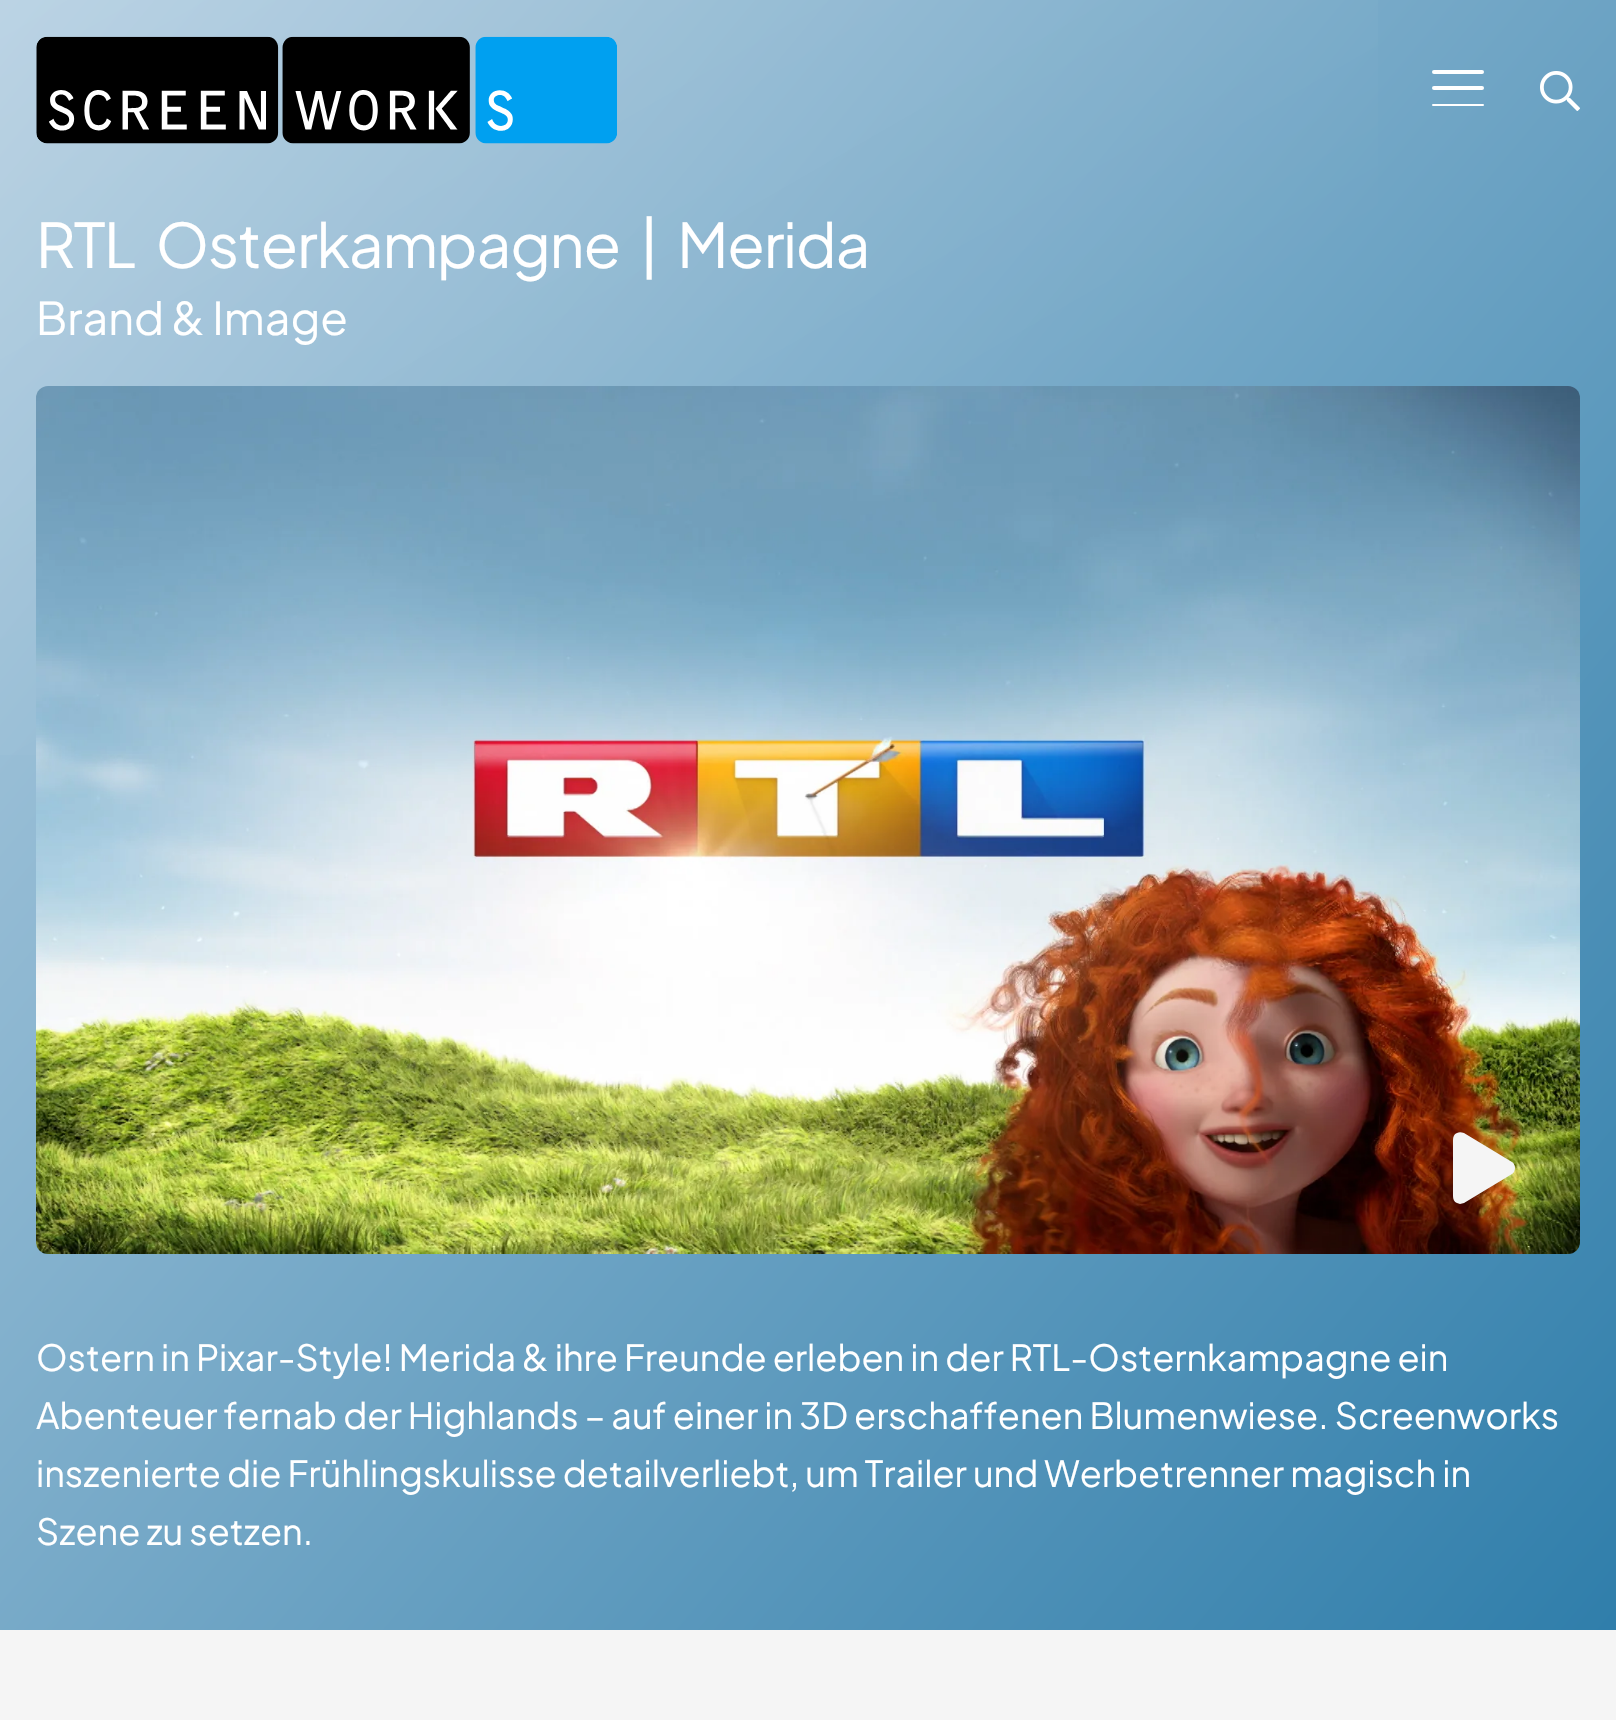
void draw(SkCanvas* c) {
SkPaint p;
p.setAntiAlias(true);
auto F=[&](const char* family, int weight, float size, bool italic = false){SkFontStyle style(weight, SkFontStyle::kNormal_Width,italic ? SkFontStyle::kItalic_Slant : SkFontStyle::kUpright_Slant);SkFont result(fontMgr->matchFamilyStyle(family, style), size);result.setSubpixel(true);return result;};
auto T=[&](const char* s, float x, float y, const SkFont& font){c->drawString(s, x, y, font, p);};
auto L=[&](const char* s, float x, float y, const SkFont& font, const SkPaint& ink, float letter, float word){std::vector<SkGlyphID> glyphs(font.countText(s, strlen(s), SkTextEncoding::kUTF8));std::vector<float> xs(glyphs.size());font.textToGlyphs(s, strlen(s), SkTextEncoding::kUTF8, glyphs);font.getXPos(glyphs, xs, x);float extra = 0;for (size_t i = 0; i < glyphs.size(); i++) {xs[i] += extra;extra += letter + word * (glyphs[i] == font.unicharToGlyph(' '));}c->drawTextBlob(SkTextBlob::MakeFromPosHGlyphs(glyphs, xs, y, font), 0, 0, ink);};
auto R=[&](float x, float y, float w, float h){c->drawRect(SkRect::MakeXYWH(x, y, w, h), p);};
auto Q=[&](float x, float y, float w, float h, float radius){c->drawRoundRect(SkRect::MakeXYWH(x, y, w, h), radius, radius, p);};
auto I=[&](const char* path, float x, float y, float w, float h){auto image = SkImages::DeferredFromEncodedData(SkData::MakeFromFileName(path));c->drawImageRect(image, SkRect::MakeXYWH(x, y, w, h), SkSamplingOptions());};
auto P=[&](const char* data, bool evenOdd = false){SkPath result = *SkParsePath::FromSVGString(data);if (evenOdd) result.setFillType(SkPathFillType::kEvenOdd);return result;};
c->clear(0xfff5f5f5);
{
const SkColor colors[] = {0xffb6d0e2,0xff2e7daa};
const float stops[] = {0,1};
const SkPoint ends[] = {{-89,63}, {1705,1567}};
p.setShader(SkGradientShader::MakeLinear(ends, colors, stops, 2, SkTileMode::kClamp));
p.setAlpha(255);
}
R(0,0,1616,1630);
{
const SkColor colors[] = {0x1affffff,0x00ffffff};
const float stops[] = {0,.4};
const SkPoint ends[] = {{244,-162}, {1372,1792}};
p.setShader(SkGradientShader::MakeLinear(ends, colors, stops, 2, SkTileMode::kClamp));
p.setAlpha(255);
}
R(0,0,1378,755);
I("1.png",36,36,581,108);
p.setShader(nullptr);
p.setColor(0xffffffff);
Q(1432,86,52,4,2);
Q(1432,70,52,4,2);
Q(1432,104,52,2,1);
I("2.png",1540,71,40,40);
auto f1 = F("Plus Jakarta Sans",400,61.25);
L("RTL Osterkampagne | Merida",36,268,f1,p,-1.25,11);
auto f2 = F("Plus Jakarta Sans",400,45);
T("Brand & Image",36,335,f2);
I("3.png",36,386,1544,868);
p.setColor(0xfff5f5f5);
c->drawPath(P("M1460 1204l-3-1c-3-1-4-4-4-7v-56c0-3 1-6 4-7c2-1 4-1 7 0l48 29c2 1 3 4 3 6c0 2-1 5-3 6l-48 29z"),p);
auto f3 = F("Plus Jakarta Sans",400,36);
p.setColor(0xffffffff);
T("Ostern in Pixar-Style! Merida & ihre Freunde erleben in der RTL-Osternkampagne ein",36,1371,f3);
T("Abenteuer fernab der Highlands – auf einer in 3D erschaffenen Blumenwiese. Screenworks",36,1429,f3);
T("inszenierte die Frühlingskulisse detailverliebt, um Trailer und Werbetrenner magisch in",36,1487,f3);
T("Szene zu setzen.",36,1545,f3);
}
